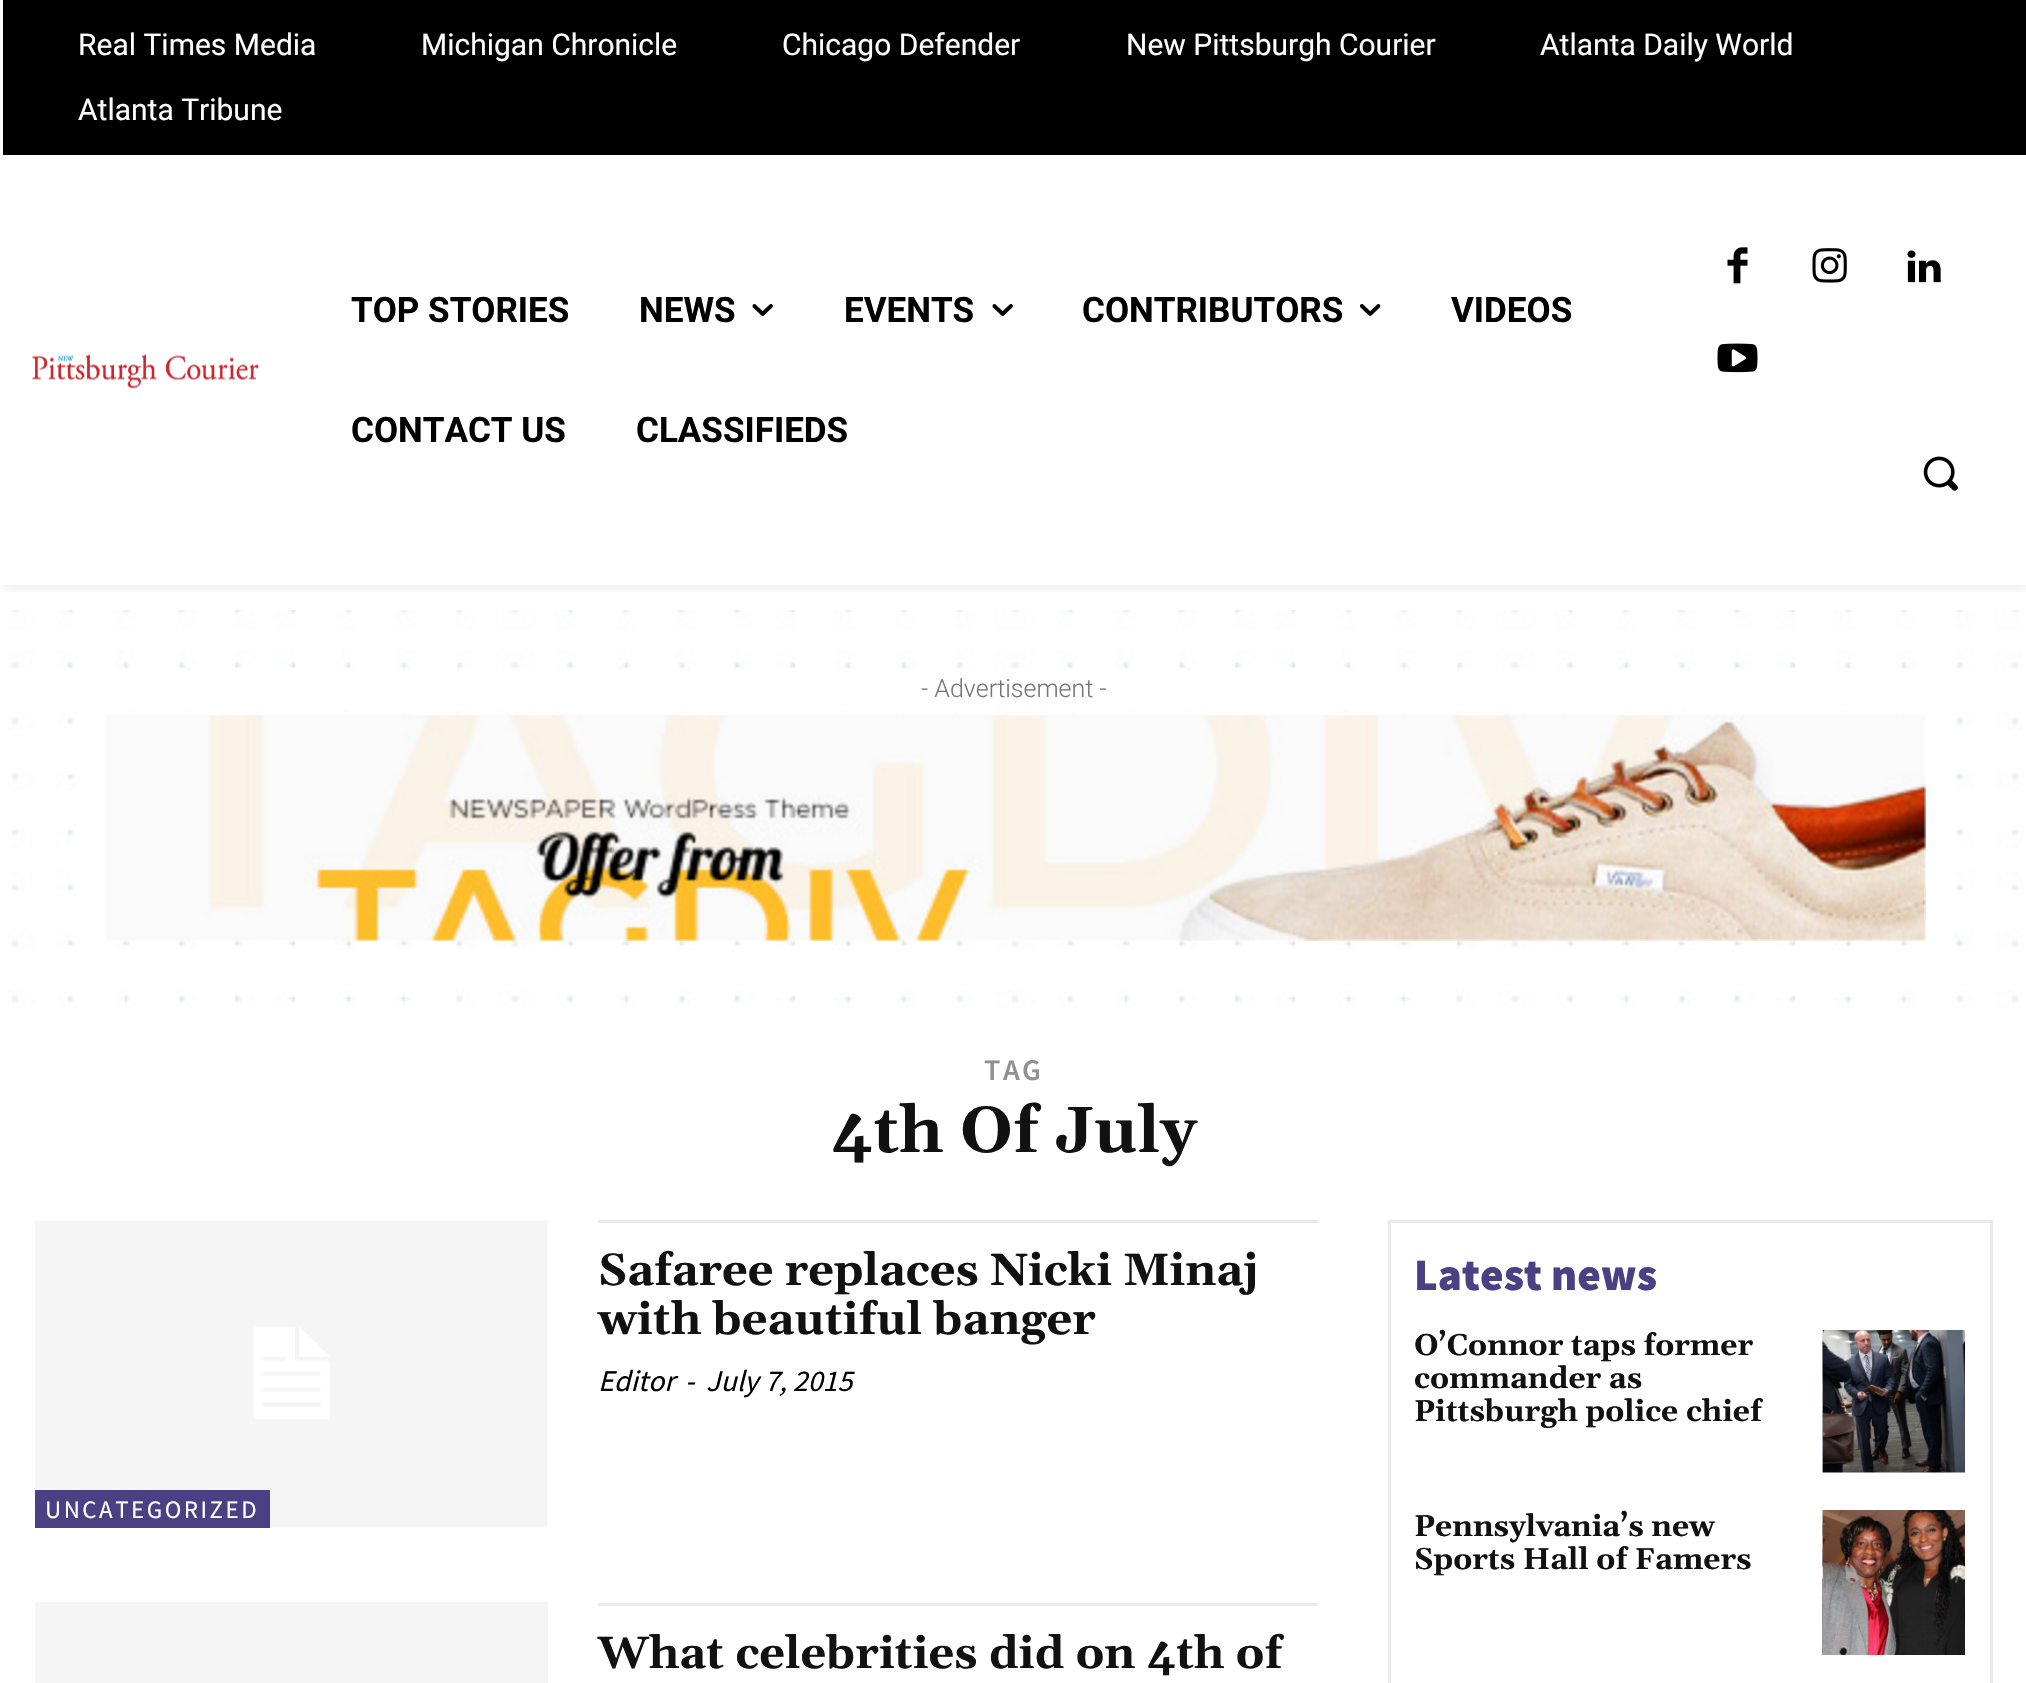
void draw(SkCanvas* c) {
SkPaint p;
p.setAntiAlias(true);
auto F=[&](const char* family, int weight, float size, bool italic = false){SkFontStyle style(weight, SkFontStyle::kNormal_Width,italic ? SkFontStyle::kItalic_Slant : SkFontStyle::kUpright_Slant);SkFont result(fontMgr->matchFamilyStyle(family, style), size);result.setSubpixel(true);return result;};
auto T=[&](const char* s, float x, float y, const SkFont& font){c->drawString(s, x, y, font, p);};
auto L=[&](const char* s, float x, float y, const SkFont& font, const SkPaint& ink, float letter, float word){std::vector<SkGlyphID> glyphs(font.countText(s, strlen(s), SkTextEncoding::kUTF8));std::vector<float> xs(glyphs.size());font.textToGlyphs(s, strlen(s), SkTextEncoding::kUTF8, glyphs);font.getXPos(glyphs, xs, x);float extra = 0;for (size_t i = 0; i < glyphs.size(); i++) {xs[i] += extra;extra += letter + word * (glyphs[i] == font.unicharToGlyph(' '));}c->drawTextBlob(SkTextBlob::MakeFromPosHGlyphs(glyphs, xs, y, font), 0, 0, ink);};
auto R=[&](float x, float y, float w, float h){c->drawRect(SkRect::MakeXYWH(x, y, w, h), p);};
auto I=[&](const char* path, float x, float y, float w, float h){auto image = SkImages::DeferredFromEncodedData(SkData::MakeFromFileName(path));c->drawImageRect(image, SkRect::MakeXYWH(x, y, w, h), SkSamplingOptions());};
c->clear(0xffffffff);
p.setColor(0xff000000);
R(3,0,2023,155);
auto f1 = F("Roboto",400,30);
p.setColor(0xffffffff);
T("Real Times Media",78,55,f1);
T("Michigan Chronicle",421,55,f1);
T("Chicago Defender",782,55,f1);
T("New Pittsburgh Courier",1126,55,f1);
T("Atlanta Daily World",1540,55,f1);
T("Atlanta Tribune",78,120,f1);
I("1.png",32,354,227,35);
I("4.png",1727,247,21,37);
I("5.png",1812,248,35,35);
I("6.png",1907,250,34,33);
I("7.png",1717,343,41,30);
c->save();
c->clipRect(SkRect::MakeXYWH(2,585,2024,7));
p.setColor(0x0f000000);
p.setMaskFilter(SkMaskFilter::MakeBlur(kNormal_SkBlurStyle, 5));
c->drawRect(SkRect::MakeXYWH(3,160,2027,430),p);
p.setMaskFilter(nullptr);
c->restore();
auto f2 = F("Roboto",700,35);
p.setColor(0xff000000);
T("TOP STORIES",351,322,f2);
T("NEWS",639,322,f2);
I("2.png",752,304,21,12);
T("EVENTS",844,322,f2);
I("2.png",992,304,21,12);
T("CONTRIBUTORS",1082,322,f2);
I("3.png",1360,304,21,12);
T("VIDEOS",1451,322,f2);
T("CONTACT US",351,442,f2);
T("CLASSIFIEDS",636,442,f2);
I("8.png",1923,456,35,35);
I("9.png",8,610,2014,399);
auto f3 = F("Roboto",300,25);
p.setColor(0xff767676);
T("- Advertisement -",921,697,f3);
I("10.png",106,714,1820,227);
auto f4 = F("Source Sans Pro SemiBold",600,30);
p.setColor(0xff919191);
L("TAG",984,1080,f4,p,2.5,0);
auto f5 = F("Gelasio",700,65);
p.setColor(0xff111111);
T("4th Of July",831,1152,f5);
p.setColor(0xffeaeaea);
R(598,1220,720,3);
auto f6 = F("Gelasio",700,45);
p.setColor(0xff111111);
T("Safaree replaces Nicki Minaj",598,1285,f6);
T("with beautiful banger",598,1334,f6);
auto f7 = F("Source Sans Pro",400,30,true);
p.setColor(0xff000000);
T("Editor",598,1391,f7);
T("-",685,1391,f7);
T("July 7, 2015",706,1391,f7);
I("11.png",35,1220,513,308);
p.setColor(0xff4c4084);
R(35,1490,235,38);
auto f8 = F("Source Sans Pro",400,25);
p.setColor(0xffffffff);
L("UNCATEGORIZED",45,1518,f8,p,2.5,0);
p.setColor(0xfff5f5f5);
R(35,1602,513,81);
p.setColor(0xffeaeaea);
R(598,1603,720,3);
p.setColor(0xff111111);
T("What celebrities did on 4th of",598,1668,f6);
p.setStroke(true);
p.setStrokeWidth(3);
p.setColor(0xffeaeaea);
c->drawRect(SkRect::MakeXYWH(1389.5,1221.5,602,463),p);
auto f9 = F("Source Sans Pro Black",900,45);
p.setStroke(false);
p.setColor(0xff4c4084);
T("Latest news",1414,1290,f9);
auto f10 = F("Gelasio",700,30);
p.setColor(0xff111111);
T("O’Connor taps former",1414,1355,f10);
T("commander as",1414,1388,f10);
T("Pittsburgh police chief",1414,1421,f10);
I("12.png",1822,1330,143,143);
T("Pennsylvania’s new",1414,1536,f10);
T("Sports Hall of Famers",1414,1569,f10);
I("13.png",1822,1510,143,145);
}
